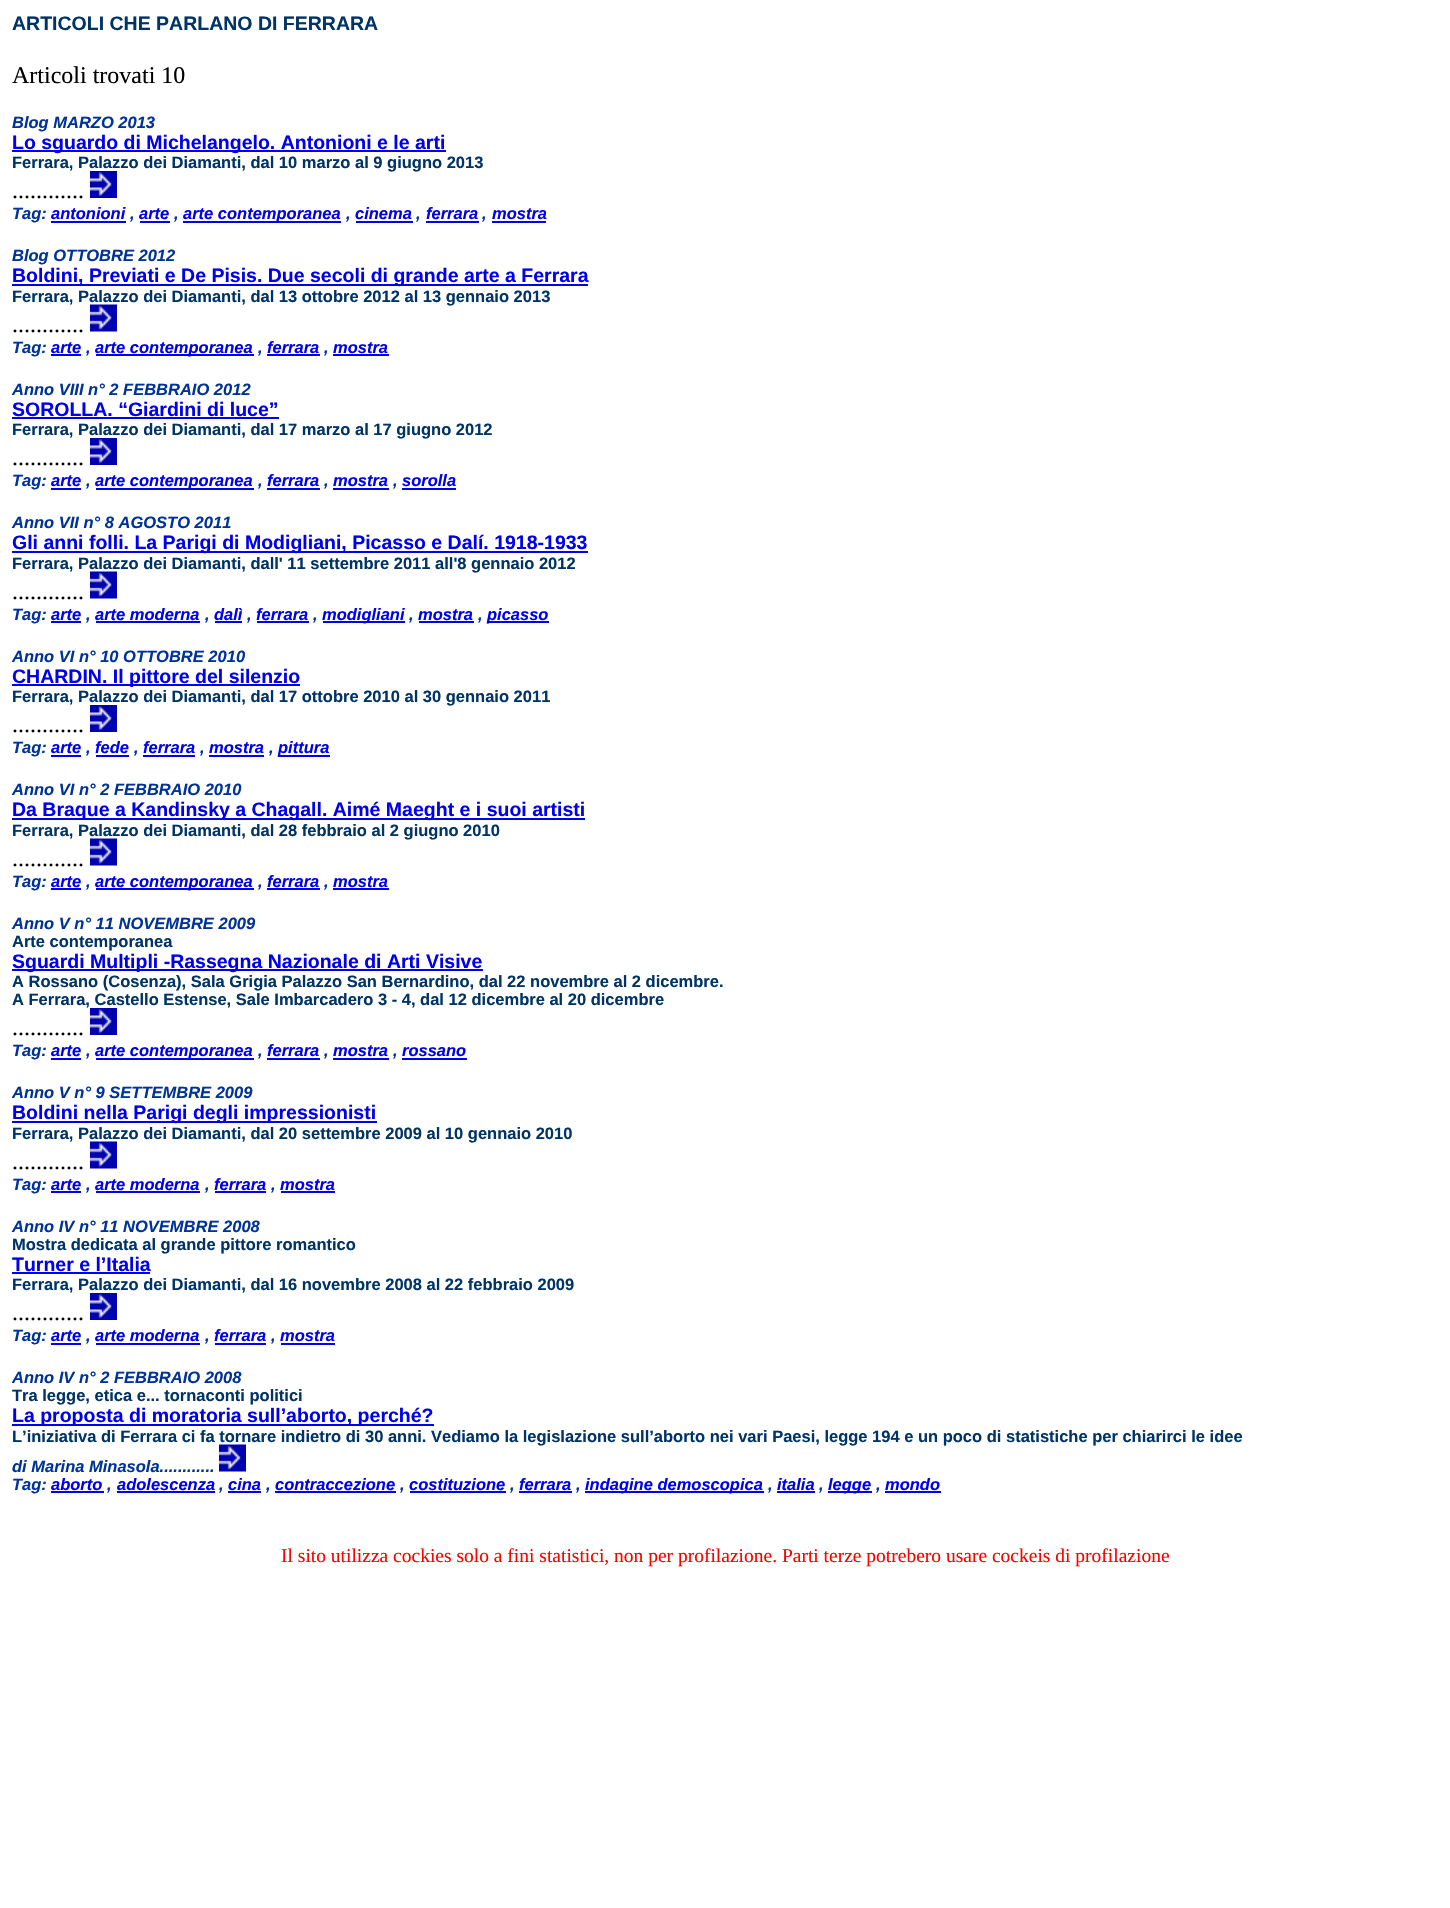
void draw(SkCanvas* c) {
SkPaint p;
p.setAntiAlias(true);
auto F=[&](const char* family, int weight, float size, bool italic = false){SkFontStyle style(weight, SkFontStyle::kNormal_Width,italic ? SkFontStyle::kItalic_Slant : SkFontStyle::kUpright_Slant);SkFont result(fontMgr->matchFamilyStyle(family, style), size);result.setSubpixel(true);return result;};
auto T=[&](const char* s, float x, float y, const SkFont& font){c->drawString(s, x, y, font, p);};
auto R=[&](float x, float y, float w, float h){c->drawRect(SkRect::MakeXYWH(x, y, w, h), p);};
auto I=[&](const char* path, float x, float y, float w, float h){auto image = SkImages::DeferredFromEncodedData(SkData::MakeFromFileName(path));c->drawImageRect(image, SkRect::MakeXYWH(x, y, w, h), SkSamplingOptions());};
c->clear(0xffffffff);
auto f1 = F("Liberation Sans",700,19.5);
p.setColor(0xff003366);
T("ARTICOLI CHE PARLANO DI FERRARA",12,30,f1);
auto f2 = F("Liberation Serif",400,24);
p.setColor(0xff000000);
T("Articoli trovati 10",12,83,f2);
auto f3 = F("Liberation Sans",700,16.5,true);
p.setColor(0xff003399);
T("Blog MARZO 2013",12,128,f3);
p.setColor(0xff0000ee);
R(12,150,434,2);
T("Lo sguardo di Michelangelo. Antonioni e le arti",12,149,f1);
auto f4 = F("Liberation Sans",700,16.5);
p.setColor(0xff003366);
T("Ferrara, Palazzo dei Diamanti, dal 10 marzo al 9 giugno 2013",12,168,f4);
p.setColor(0xff000000);
T("............",12,198,f2);
I("1.png",90,171,27,27);
p.setColor(0xff003399);
T("Tag:",12,219,f3);
p.setColor(0xff0000ee);
T("antonioni",51,219,f3);
p.setColor(0xff003399);
T(",",130,219,f3);
p.setColor(0xff0000ee);
R(51,221,75,2);
T("arte",139,219,f3);
p.setColor(0xff003399);
T(",",174,219,f3);
p.setColor(0xff0000ee);
R(140,221,30,2);
R(183,221,158,2);
T("arte contemporanea",183,219,f3);
p.setColor(0xff003399);
T(",",346,219,f3);
p.setColor(0xff0000ee);
T("cinema",355,219,f3);
p.setColor(0xff003399);
T(",",416,219,f3);
p.setColor(0xff0000ee);
R(356,221,57,2);
T("ferrara",426,219,f3);
p.setColor(0xff003399);
T(",",482,219,f3);
p.setColor(0xff0000ee);
R(426,221,53,2);
R(492,221,54,2);
T("mostra",492,219,f3);
p.setColor(0xff003399);
T("Blog OTTOBRE 2012",12,261,f3);
p.setColor(0xff0000ee);
R(12,284,576,2);
T("Boldini, Previati e De Pisis. Due secoli di grande arte a Ferrara",12,282,f1);
p.setColor(0xff003366);
T("Ferrara, Palazzo dei Diamanti, dal 13 ottobre 2012 al 13 gennaio 2013",12,302,f4);
p.setColor(0xff000000);
T("............",12,332,f2);
I("2.png",90,304,27,28);
p.setColor(0xff003399);
T("Tag:",12,353,f3);
p.setColor(0xff0000ee);
T("arte",51,353,f3);
p.setColor(0xff003399);
T(",",86,353,f3);
p.setColor(0xff0000ee);
R(51,354,30,2);
R(96,354,158,2);
T("arte contemporanea",95,353,f3);
p.setColor(0xff003399);
T(",",258,353,f3);
p.setColor(0xff0000ee);
T("ferrara",267,353,f3);
p.setColor(0xff003399);
T(",",324,353,f3);
p.setColor(0xff0000ee);
R(267,354,53,2);
R(333,354,56,2);
T("mostra",333,353,f3);
p.setColor(0xff003399);
T("Anno VIII n° 2 FEBBRAIO 2012",12,395,f3);
p.setColor(0xff0000ee);
T("SOROLLA. “Giardini di luce”",12,416,f1);
R(12,417,267,2);
p.setColor(0xff003366);
T("Ferrara, Palazzo dei Diamanti, dal 17 marzo al 17 giugno 2012",12,435,f4);
p.setColor(0xff000000);
T("............",12,465,f2);
I("1.png",90,438,27,27);
p.setColor(0xff003399);
T("Tag:",12,486,f3);
p.setColor(0xff0000ee);
T("arte",51,486,f3);
p.setColor(0xff003399);
T(",",86,486,f3);
p.setColor(0xff0000ee);
R(51,488,30,2);
R(96,488,158,2);
T("arte contemporanea",95,486,f3);
p.setColor(0xff003399);
T(",",258,486,f3);
p.setColor(0xff0000ee);
T("ferrara",267,486,f3);
p.setColor(0xff003399);
T(",",324,486,f3);
p.setColor(0xff0000ee);
R(267,488,53,2);
T("mostra",333,486,f3);
p.setColor(0xff003399);
T(",",393,486,f3);
p.setColor(0xff0000ee);
R(333,488,56,2);
R(402,488,54,2);
T("sorolla",402,486,f3);
p.setColor(0xff003399);
T("Anno VII n° 8 AGOSTO 2011",12,528,f3);
p.setColor(0xff0000ee);
R(12,551,576,2);
T("Gli anni folli. La Parigi di Modigliani, Picasso e Dalí. 1918-1933",12,549,f1);
p.setColor(0xff003366);
T("Ferrara, Palazzo dei Diamanti, dall' 11 settembre 2011 all'8 gennaio 2012",12,569,f4);
p.setColor(0xff000000);
T("............",12,599,f2);
I("2.png",90,571,27,28);
p.setColor(0xff003399);
T("Tag:",12,620,f3);
p.setColor(0xff0000ee);
T("arte",51,620,f3);
p.setColor(0xff003399);
T(",",86,620,f3);
p.setColor(0xff0000ee);
R(51,621,30,2);
T("arte moderna",95,620,f3);
p.setColor(0xff003399);
T(",",205,620,f3);
p.setColor(0xff0000ee);
R(96,621,104,2);
T("dalì",214,620,f3);
p.setColor(0xff003399);
T(",",247,620,f3);
p.setColor(0xff0000ee);
R(215,621,27,2);
T("ferrara",256,620,f3);
p.setColor(0xff003399);
T(",",313,620,f3);
p.setColor(0xff0000ee);
R(257,621,52,2);
R(323,621,82,2);
T("modigliani",322,620,f3);
p.setColor(0xff003399);
T(",",409,620,f3);
p.setColor(0xff0000ee);
T("mostra",418,620,f3);
p.setColor(0xff003399);
T(",",478,620,f3);
p.setColor(0xff0000ee);
R(419,621,55,2);
R(488,621,61,2);
T("picasso",487,620,f3);
p.setColor(0xff003399);
T("Anno VI n° 10 OTTOBRE 2010",12,662,f3);
p.setColor(0xff0000ee);
R(12,684,288,2);
T("CHARDIN. Il pittore del silenzio",12,683,f1);
p.setColor(0xff003366);
T("Ferrara, Palazzo dei Diamanti, dal 17 ottobre 2010 al 30 gennaio 2011",12,702,f4);
p.setColor(0xff000000);
T("............",12,732,f2);
I("1.png",90,705,27,27);
p.setColor(0xff003399);
T("Tag:",12,753,f3);
p.setColor(0xff0000ee);
T("arte",51,753,f3);
p.setColor(0xff003399);
T(",",86,753,f3);
p.setColor(0xff0000ee);
R(51,755,30,2);
T("fede",95,753,f3);
p.setColor(0xff003399);
T(",",134,753,f3);
p.setColor(0xff0000ee);
R(96,755,33,2);
T("ferrara",143,753,f3);
p.setColor(0xff003399);
T(",",200,753,f3);
p.setColor(0xff0000ee);
R(143,755,52,2);
T("mostra",209,753,f3);
p.setColor(0xff003399);
T(",",269,753,f3);
p.setColor(0xff0000ee);
R(209,755,55,2);
R(278,755,52,2);
T("pittura",278,753,f3);
p.setColor(0xff003399);
T("Anno VI n° 2 FEBBRAIO 2010",12,795,f3);
p.setColor(0xff0000ee);
R(12,818,573,2);
T("Da Braque a Kandinsky a Chagall. Aimé Maeght e i suoi artisti",12,816,f1);
p.setColor(0xff003366);
T("Ferrara, Palazzo dei Diamanti, dal 28 febbraio al 2 giugno 2010",12,836,f4);
p.setColor(0xff000000);
T("............",12,866,f2);
I("2.png",90,838,27,28);
p.setColor(0xff003399);
T("Tag:",12,887,f3);
p.setColor(0xff0000ee);
T("arte",51,887,f3);
p.setColor(0xff003399);
T(",",86,887,f3);
p.setColor(0xff0000ee);
R(51,888,30,2);
R(96,888,158,2);
T("arte contemporanea",95,887,f3);
p.setColor(0xff003399);
T(",",258,887,f3);
p.setColor(0xff0000ee);
T("ferrara",267,887,f3);
p.setColor(0xff003399);
T(",",324,887,f3);
p.setColor(0xff0000ee);
R(267,888,53,2);
R(333,888,56,2);
T("mostra",333,887,f3);
p.setColor(0xff003399);
T("Anno V n° 11 NOVEMBRE 2009",12,929,f3);
p.setColor(0xff003366);
T("Arte contemporanea",12,947,f4);
p.setColor(0xff0000ee);
R(12,969,471,2);
T("Sguardi Multipli -Rassegna Nazionale di Arti Visive",12,968,f1);
p.setColor(0xff003366);
T("A Rossano (Cosenza), Sala Grigia Palazzo San Bernardino, dal 22 novembre al 2 dicembre.",12,987,f4);
T("A Ferrara, Castello Estense, Sale Imbarcadero 3 - 4, dal 12 dicembre al 20 dicembre",12,1005,f4);
p.setColor(0xff000000);
T("............",12,1035,f2);
I("1.png",90,1008,27,27);
p.setColor(0xff003399);
T("Tag:",12,1056,f3);
p.setColor(0xff0000ee);
T("arte",51,1056,f3);
p.setColor(0xff003399);
T(",",86,1056,f3);
p.setColor(0xff0000ee);
R(51,1058,30,2);
R(96,1058,158,2);
T("arte contemporanea",95,1056,f3);
p.setColor(0xff003399);
T(",",258,1056,f3);
p.setColor(0xff0000ee);
T("ferrara",267,1056,f3);
p.setColor(0xff003399);
T(",",324,1056,f3);
p.setColor(0xff0000ee);
R(267,1058,53,2);
T("mostra",333,1056,f3);
p.setColor(0xff003399);
T(",",393,1056,f3);
p.setColor(0xff0000ee);
R(333,1058,56,2);
R(402,1058,65,2);
T("rossano",402,1056,f3);
p.setColor(0xff003399);
T("Anno V n° 9 SETTEMBRE 2009",12,1098,f3);
p.setColor(0xff0000ee);
R(12,1121,365,2);
T("Boldini nella Parigi degli impressionisti",12,1119,f1);
p.setColor(0xff003366);
T("Ferrara, Palazzo dei Diamanti, dal 20 settembre 2009 al 10 gennaio 2010",12,1139,f4);
p.setColor(0xff000000);
T("............",12,1169,f2);
I("2.png",90,1141,27,28);
p.setColor(0xff003399);
T("Tag:",12,1190,f3);
p.setColor(0xff0000ee);
T("arte",51,1190,f3);
p.setColor(0xff003399);
T(",",86,1190,f3);
p.setColor(0xff0000ee);
R(51,1191,30,2);
T("arte moderna",95,1190,f3);
p.setColor(0xff003399);
T(",",205,1190,f3);
p.setColor(0xff0000ee);
R(96,1191,104,2);
T("ferrara",214,1190,f3);
p.setColor(0xff003399);
T(",",271,1190,f3);
p.setColor(0xff0000ee);
R(215,1191,51,2);
R(281,1191,54,2);
T("mostra",280,1190,f3);
p.setColor(0xff003399);
T("Anno IV n° 11 NOVEMBRE 2008",12,1232,f3);
p.setColor(0xff003366);
T("Mostra dedicata al grande pittore romantico",12,1250,f4);
p.setColor(0xff0000ee);
T("Turner e l’Italia",12,1271,f1);
R(12,1272,138,2);
p.setColor(0xff003366);
T("Ferrara, Palazzo dei Diamanti, dal 16 novembre 2008 al 22 febbraio 2009",12,1290,f4);
p.setColor(0xff000000);
T("............",12,1320,f2);
I("1.png",90,1293,27,27);
p.setColor(0xff003399);
T("Tag:",12,1341,f3);
p.setColor(0xff0000ee);
T("arte",51,1341,f3);
p.setColor(0xff003399);
T(",",86,1341,f3);
p.setColor(0xff0000ee);
R(51,1343,30,2);
T("arte moderna",95,1341,f3);
p.setColor(0xff003399);
T(",",205,1341,f3);
p.setColor(0xff0000ee);
R(96,1343,104,2);
T("ferrara",214,1341,f3);
p.setColor(0xff003399);
T(",",271,1341,f3);
p.setColor(0xff0000ee);
R(215,1343,51,2);
R(281,1343,54,2);
T("mostra",280,1341,f3);
p.setColor(0xff003399);
T("Anno IV n° 2 FEBBRAIO 2008",12,1383,f3);
p.setColor(0xff003366);
T("Tra legge, etica e... tornaconti politici",12,1401,f4);
p.setColor(0xff0000ee);
R(12,1424,422,2);
T("La proposta di moratoria sull’aborto, perché?",12,1422,f1);
p.setColor(0xff003366);
T("L’iniziativa di Ferrara ci fa tornare indietro di 30 anni. Vediamo la legislazione sull’aborto nei vari Paesi, legge 194 e un poco di statistiche per chiarirci le idee",12,1442,f4);
p.setColor(0xff003399);
T("di Marina Minasola............",12,1472,f3);
I("2.png",219,1444,27,28);
T("Tag:",12,1490,f3);
p.setColor(0xff0000ee);
T("aborto",51,1490,f3);
p.setColor(0xff003399);
T(",",107,1490,f3);
p.setColor(0xff0000ee);
R(51,1491,53,2);
T("adolescenza",117,1490,f3);
p.setColor(0xff003399);
T(",",219,1490,f3);
p.setColor(0xff0000ee);
R(117,1491,98,2);
T("cina",228,1490,f3);
p.setColor(0xff003399);
T(",",266,1490,f3);
p.setColor(0xff0000ee);
R(228,1491,33,2);
T("contraccezione",275,1490,f3);
p.setColor(0xff003399);
T(",",400,1490,f3);
p.setColor(0xff0000ee);
R(275,1491,121,2);
T("costituzione",409,1490,f3);
p.setColor(0xff003399);
T(",",510,1490,f3);
p.setColor(0xff0000ee);
R(410,1491,96,2);
T("ferrara",519,1490,f3);
p.setColor(0xff003399);
T(",",576,1490,f3);
p.setColor(0xff0000ee);
R(519,1491,53,2);
R(585,1491,179,2);
T("indagine demoscopica",585,1490,f3);
p.setColor(0xff003399);
T(",",768,1490,f3);
p.setColor(0xff0000ee);
T("italia",777,1490,f3);
p.setColor(0xff003399);
T(",",819,1490,f3);
p.setColor(0xff0000ee);
R(777,1491,38,2);
R(828,1491,44,2);
T("legge",828,1490,f3);
p.setColor(0xff003399);
T(",",876,1490,f3);
p.setColor(0xff0000ee);
R(885,1491,56,2);
T("mondo",885,1490,f3);
auto f5 = F("Liberation Serif",400,19.5);
p.setColor(0xffff0000);
T("Il sito utilizza cockies solo a fini statistici, non per profilazione. Parti terze potrebero usare cockeis di profilazione",281,1562,f5);
}
